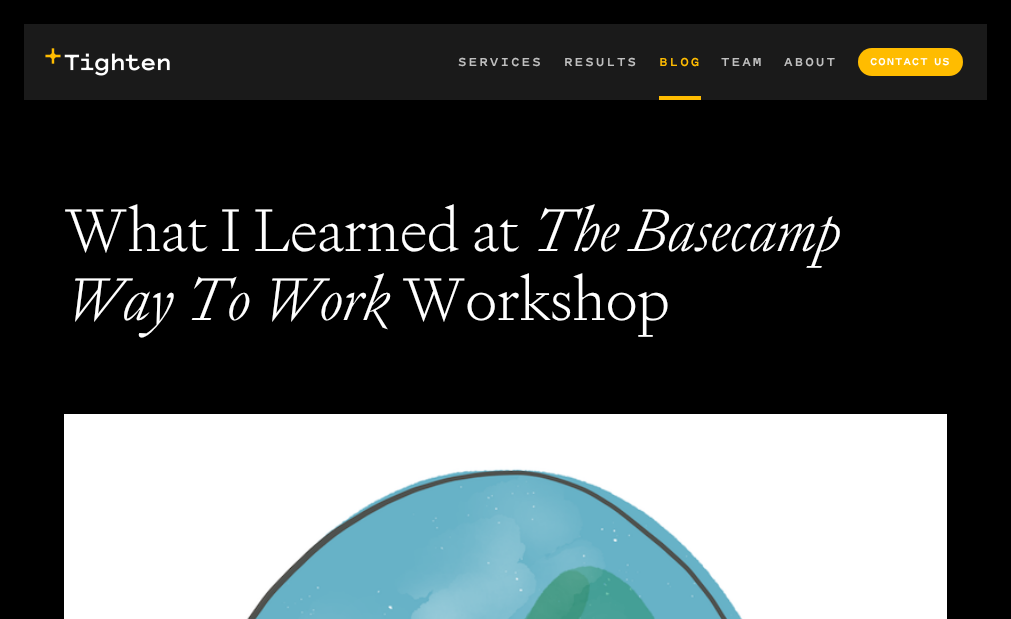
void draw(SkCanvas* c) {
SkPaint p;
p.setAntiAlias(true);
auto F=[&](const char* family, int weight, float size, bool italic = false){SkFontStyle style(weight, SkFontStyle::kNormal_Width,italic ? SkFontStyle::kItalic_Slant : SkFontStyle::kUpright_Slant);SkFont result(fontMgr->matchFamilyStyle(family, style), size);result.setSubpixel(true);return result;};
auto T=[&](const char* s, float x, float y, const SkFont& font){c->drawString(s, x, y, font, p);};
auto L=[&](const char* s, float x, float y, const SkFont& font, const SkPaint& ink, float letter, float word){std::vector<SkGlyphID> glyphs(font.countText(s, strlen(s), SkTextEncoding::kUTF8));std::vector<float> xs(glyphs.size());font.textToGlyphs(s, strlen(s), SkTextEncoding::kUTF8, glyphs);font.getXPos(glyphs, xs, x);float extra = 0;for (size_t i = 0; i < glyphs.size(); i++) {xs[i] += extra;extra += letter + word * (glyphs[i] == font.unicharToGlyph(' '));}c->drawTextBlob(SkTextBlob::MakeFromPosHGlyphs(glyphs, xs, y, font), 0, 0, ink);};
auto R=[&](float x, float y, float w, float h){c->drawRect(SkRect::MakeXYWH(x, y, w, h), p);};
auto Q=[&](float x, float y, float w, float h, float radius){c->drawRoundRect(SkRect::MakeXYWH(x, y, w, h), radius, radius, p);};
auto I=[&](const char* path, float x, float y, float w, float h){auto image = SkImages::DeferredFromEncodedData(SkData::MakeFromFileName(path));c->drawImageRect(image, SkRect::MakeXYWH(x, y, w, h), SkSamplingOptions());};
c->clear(0xff000000);
p.setColor(0xff1a1a1a);
R(24,24,963,76);
I("1.png",45,48,125,28);
auto f1 = F("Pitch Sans",700,14);
p.setColor(0xffc0c0c0);
L("SERVICES",458,66,f1,p,2,0);
L("RESULTS",564,66,f1,p,2,0);
p.setColor(0xffffbc00);
R(659,96,42,4);
L("BLOG",659,66,f1,p,2,0);
p.setColor(0xffc0c0c0);
L("TEAM",721,66,f1,p,2,0);
L("ABOUT",784,66,f1,p,2,0);
{
const SkColor colors[] = {0xffffbc00,0xffffbc00,0xffff9cb6,0xffc3a7f9,0xffffbc00,0xff74cae8,0xffa7dd8c,0xffffbc00,0xffffbc00};
const float stops[] = {0,.23,.31,.38,.46,.54,.62,.69,1};
const SkPoint ends[] = {{929,-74}, {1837,450}};
p.setShader(SkGradientShader::MakeLinear(ends, colors, stops, 9, SkTileMode::kClamp));
p.setAlpha(255);
}
Q(858,48,105,28,14);
auto f2 = F("Pitch Sans",700,12);
p.setShader(nullptr);
p.setColor(0xffffffff);
L("CONTACT US",870,65,f2,p,1,-3);
auto f3 = F("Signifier",200,60);
T("What I Learned at",64,251,f3);
auto f4 = F("Signifier",200,60,true);
T("The Basecamp",531,251,f4);
T("Way To Work",64,320,f4);
T("Workshop",402,320,f3);
I("2.png",64,414,883,205);
}
